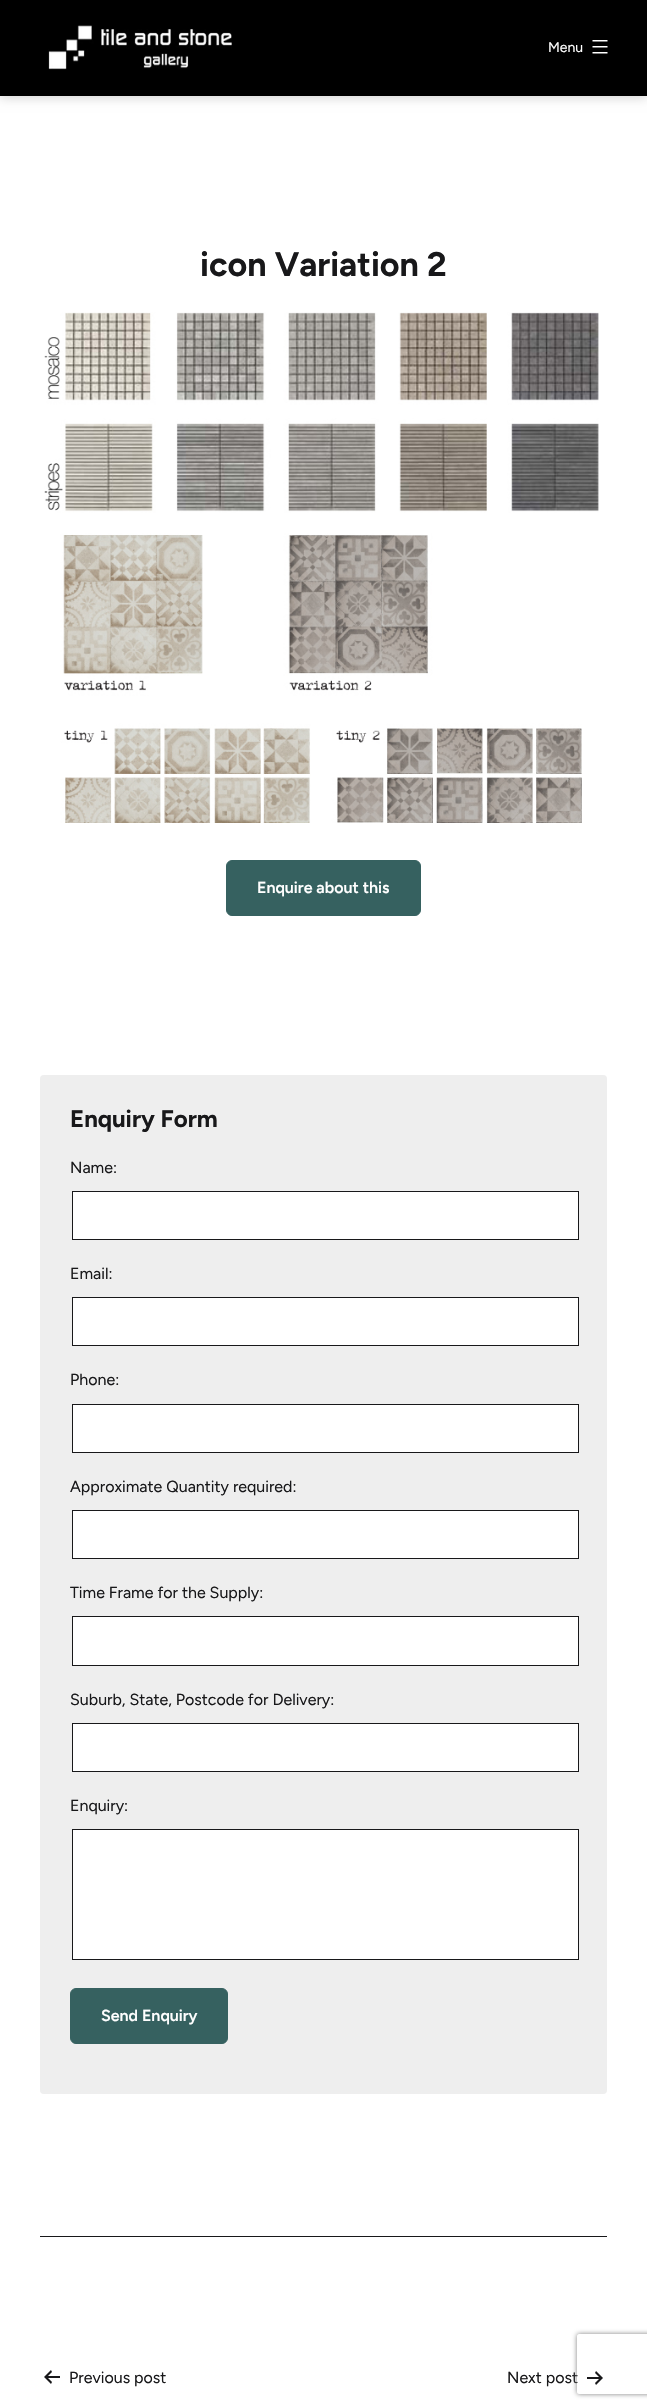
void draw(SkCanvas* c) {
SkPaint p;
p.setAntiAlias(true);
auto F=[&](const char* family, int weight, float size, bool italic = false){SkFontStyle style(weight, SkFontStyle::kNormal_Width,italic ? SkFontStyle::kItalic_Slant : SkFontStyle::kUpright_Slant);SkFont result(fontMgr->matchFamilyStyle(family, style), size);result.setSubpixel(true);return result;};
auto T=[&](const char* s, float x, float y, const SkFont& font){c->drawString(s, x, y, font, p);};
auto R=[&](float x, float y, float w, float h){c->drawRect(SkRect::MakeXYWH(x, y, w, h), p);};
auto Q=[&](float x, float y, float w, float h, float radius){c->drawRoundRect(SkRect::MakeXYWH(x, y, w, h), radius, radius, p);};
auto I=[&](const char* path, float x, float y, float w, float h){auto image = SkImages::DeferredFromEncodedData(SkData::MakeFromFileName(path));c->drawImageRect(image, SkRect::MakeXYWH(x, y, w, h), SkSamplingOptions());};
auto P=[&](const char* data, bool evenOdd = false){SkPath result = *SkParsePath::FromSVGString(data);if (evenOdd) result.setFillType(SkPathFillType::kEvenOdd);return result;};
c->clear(0xffffffff);
p.setColor(0x29000000);
p.setMaskFilter(SkMaskFilter::MakeBlur(kNormal_SkBlurStyle, 5));
c->drawRect(SkRect::MakeXYWH(0,2,647,96),p);
p.setMaskFilter(nullptr);
p.setColor(0xff000000);
R(0,0,647,96);
I("1.png",48,25,184,45);
auto f1 = F("Figtree",400,14);
p.setColor(0xffffffff);
T("Menu",548,52,f1);
I("2.png",592,40,16,14);
auto f2 = F("Figtree",700,34);
p.setColor(0xff18181a);
T("icon Variation 2",200,276,f2);
I("3.png",44,312,555,511);
p.setColor(0xff366160);
c->drawRoundRect(SkRect::MakeXYWH(226.5,860.5,194,55),5.5,5.5,p);
p.setStroke(true);
p.setStrokeWidth(1);
c->drawRoundRect(SkRect::MakeXYWH(226.5,860.5,194,55),5.5,5.5,p);
auto f3 = F("Figtree",600,16);
p.setStroke(false);
p.setColor(0xffffffff);
T("Enquire about this",257,893,f3);
p.setColor(0xffeeeeee);
Q(40,1075,567,1019,4);
auto f4 = F("Figtree",700,24);
p.setColor(0xff18181a);
T("Enquiry Form",70,1127,f4);
auto f5 = F("Figtree",400,16);
T("Name:",70,1173,f5);
p.setColor(0xffffffff);
c->drawRect(SkRect::MakeXYWH(72.5,1191.5,506,48),p);
p.setStroke(true);
p.setColor(0xff18181a);
c->drawRect(SkRect::MakeXYWH(72.5,1191.5,506,48),p);
p.setStroke(false);
T("Email:",70,1279,f5);
p.setColor(0xffffffff);
c->drawRect(SkRect::MakeXYWH(72.5,1297.5,506,48),p);
p.setStroke(true);
p.setColor(0xff18181a);
c->drawRect(SkRect::MakeXYWH(72.5,1297.5,506,48),p);
p.setStroke(false);
T("Phone:",70,1385,f5);
p.setColor(0xffffffff);
c->drawRect(SkRect::MakeXYWH(72.5,1404.5,506,48),p);
p.setStroke(true);
p.setColor(0xff18181a);
c->drawRect(SkRect::MakeXYWH(72.5,1404.5,506,48),p);
p.setStroke(false);
T("Approximate Quantity required:",70,1492,f5);
p.setColor(0xffffffff);
c->drawRect(SkRect::MakeXYWH(72.5,1510.5,506,48),p);
p.setStroke(true);
p.setColor(0xff18181a);
c->drawRect(SkRect::MakeXYWH(72.5,1510.5,506,48),p);
p.setStroke(false);
T("Time Frame for the Supply:",70,1598,f5);
p.setColor(0xffffffff);
c->drawRect(SkRect::MakeXYWH(72.5,1616.5,506,49),p);
p.setStroke(true);
p.setColor(0xff18181a);
c->drawRect(SkRect::MakeXYWH(72.5,1616.5,506,49),p);
p.setStroke(false);
T("Suburb, State, Postcode for Delivery:",70,1705,f5);
p.setColor(0xffffffff);
c->drawRect(SkRect::MakeXYWH(72.5,1723.5,506,48),p);
p.setStroke(true);
p.setColor(0xff18181a);
c->drawRect(SkRect::MakeXYWH(72.5,1723.5,506,48),p);
p.setStroke(false);
T("Enquiry:",70,1811,f5);
p.setColor(0xffffffff);
c->drawRect(SkRect::MakeXYWH(72.5,1829.5,506,130),p);
p.setStroke(true);
p.setColor(0xff18181a);
c->drawRect(SkRect::MakeXYWH(72.5,1829.5,506,130),p);
p.setStroke(false);
p.setColor(0xff366160);
c->drawRoundRect(SkRect::MakeXYWH(70.5,1988.5,157,55),5.5,5.5,p);
p.setStroke(true);
c->drawRoundRect(SkRect::MakeXYWH(70.5,1988.5,157,55),5.5,5.5,p);
p.setStroke(false);
p.setColor(0xffffffff);
T("Send Enquiry",101,2021,f3);
p.setColor(0xff18181a);
R(40,2236,567,1);
I("4.png",44,2370,16,14);
T("Previous post",69,2383,f5);
T("Next post",507,2383,f5);
I("5.png",587,2371,16,14);
c->save();
c->clipPath(P("M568 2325h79v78h-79zm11 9h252c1 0 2 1 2 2v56c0 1-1 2-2 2h-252c-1 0-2-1-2-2v-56c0-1 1-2 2-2z",true),true);
p.setColor(0xff808080);
p.setMaskFilter(SkMaskFilter::MakeBlur(kNormal_SkBlurStyle, 2.5));
c->drawRoundRect(SkRect::MakeXYWH(577,2334,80,60),2,2,p);
p.setMaskFilter(nullptr);
c->restore();
}
